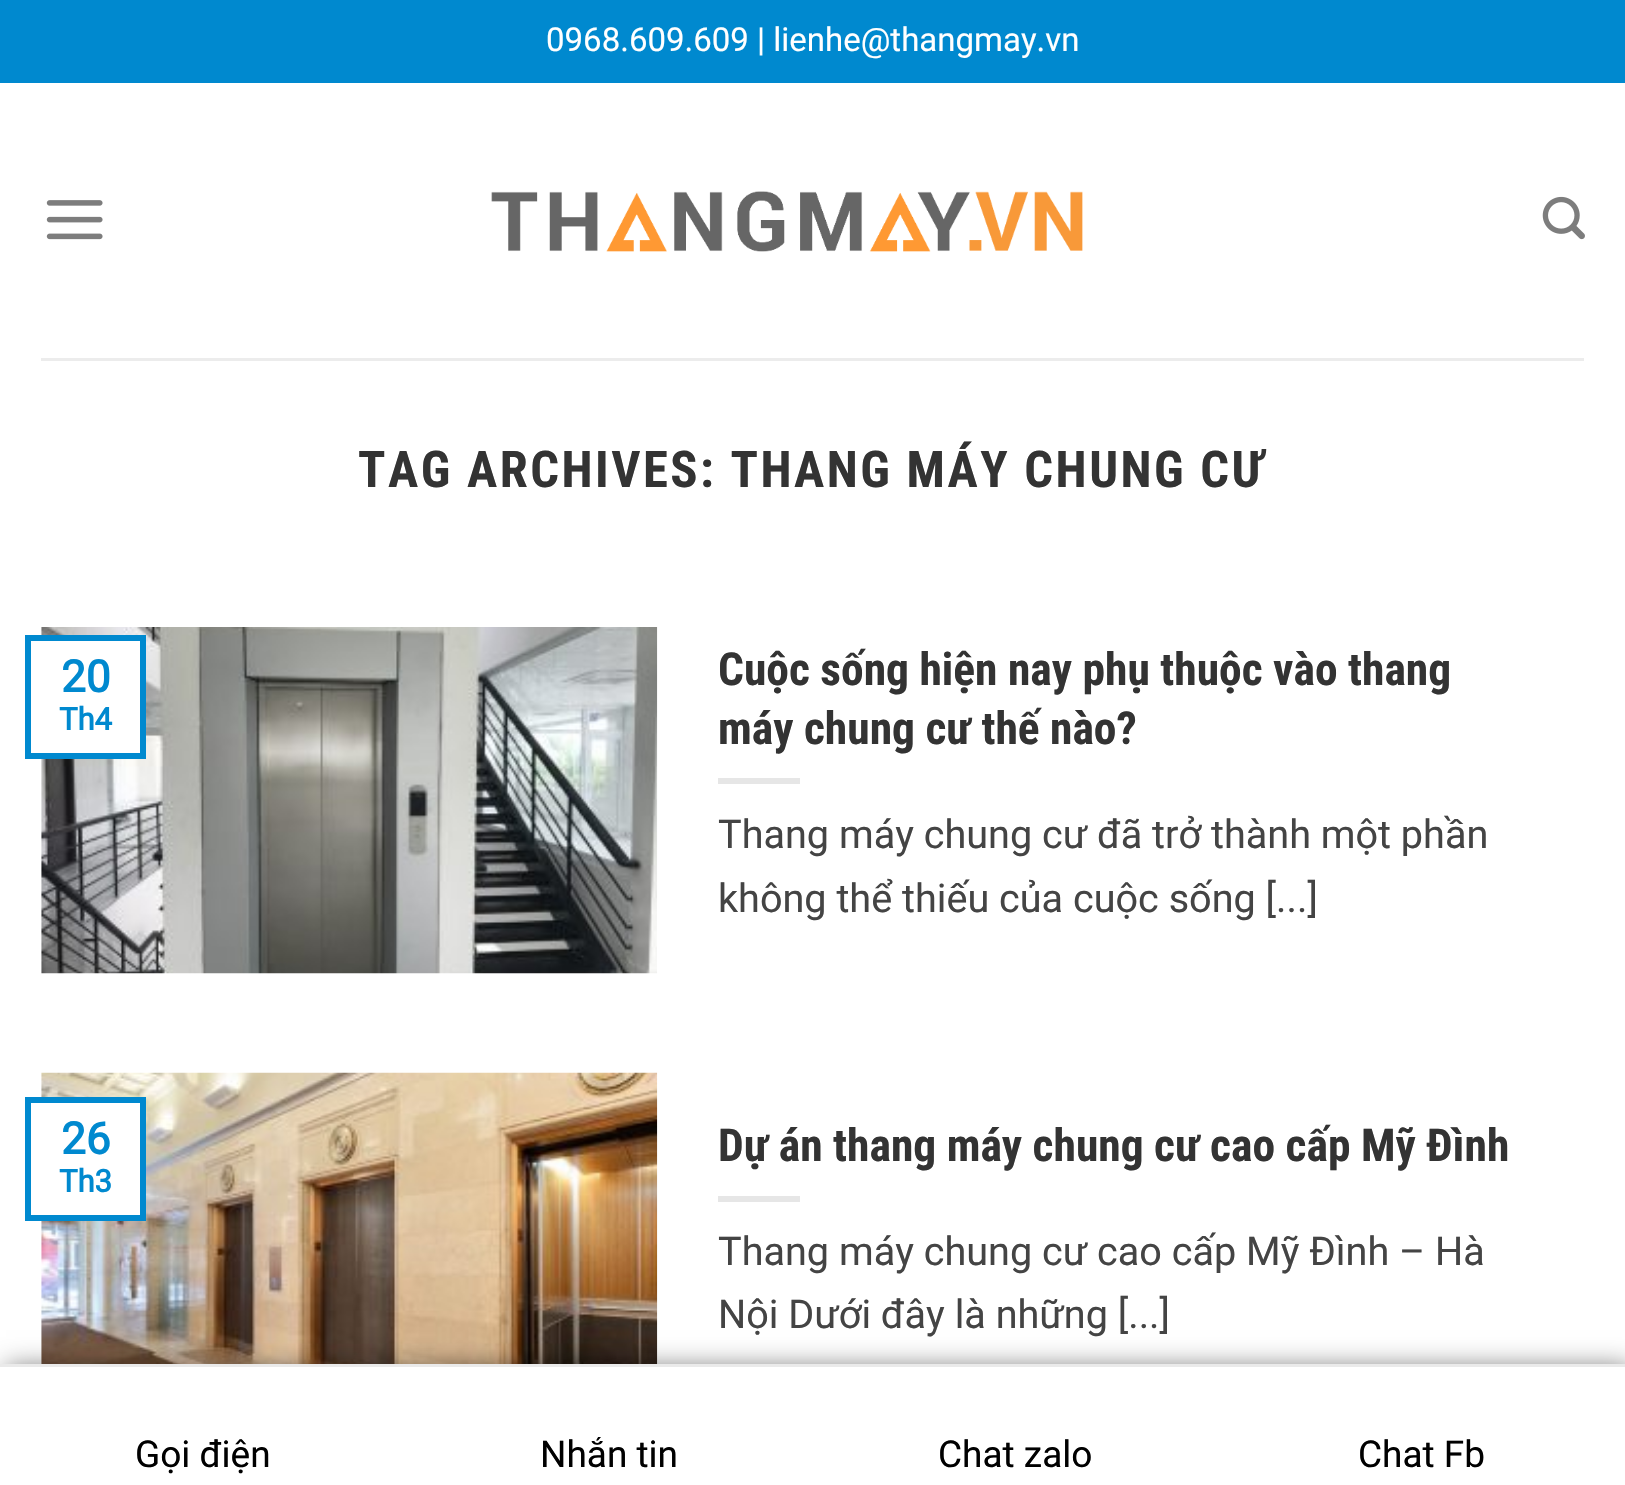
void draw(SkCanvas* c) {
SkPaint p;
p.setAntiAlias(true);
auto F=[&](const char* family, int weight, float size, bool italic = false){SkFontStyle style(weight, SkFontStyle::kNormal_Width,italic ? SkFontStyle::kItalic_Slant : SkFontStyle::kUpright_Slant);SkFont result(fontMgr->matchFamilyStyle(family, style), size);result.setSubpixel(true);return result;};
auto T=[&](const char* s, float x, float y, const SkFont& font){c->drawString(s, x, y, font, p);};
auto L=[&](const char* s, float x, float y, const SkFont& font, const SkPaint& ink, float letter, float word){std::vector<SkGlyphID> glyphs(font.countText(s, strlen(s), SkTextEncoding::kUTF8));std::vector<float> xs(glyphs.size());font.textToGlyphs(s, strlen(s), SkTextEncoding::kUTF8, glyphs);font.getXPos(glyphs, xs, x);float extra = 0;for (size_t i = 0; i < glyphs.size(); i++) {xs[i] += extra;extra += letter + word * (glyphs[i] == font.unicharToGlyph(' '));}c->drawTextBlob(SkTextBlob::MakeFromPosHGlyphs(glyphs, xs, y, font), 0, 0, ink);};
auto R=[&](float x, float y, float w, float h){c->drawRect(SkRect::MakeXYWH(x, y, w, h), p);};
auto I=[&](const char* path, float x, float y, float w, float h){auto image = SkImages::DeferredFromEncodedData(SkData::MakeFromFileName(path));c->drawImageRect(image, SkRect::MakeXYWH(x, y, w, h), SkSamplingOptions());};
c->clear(0xffffffff);
p.setColor(0xff0089cf);
R(0,0,1625,83);
auto f1 = F("Roboto",400,33);
p.setColor(0xffffffff);
T("0968.609.609 | lienhe@thangmay.vn",546,51,f1);
I("1.png",46,200,57,40);
I("2.png",491,191,592,61);
I("3.png",1542,196,43,44);
p.setColor(0xffececec);
R(41,358,1543,3);
auto f2 = F("Roboto Condensed",700,50.6);
p.setColor(0xff333333);
L("TAG ARCHIVES: THANG MÁY CHUNG CƯ",358,487,f2,p,2.5,0);
I("4.png",41,627,617,347);
auto f3 = F("Roboto Condensed",700,45.5);
T("Cuộc sống hiện nay phụ thuộc vào thang",718,685,f3);
T("máy chung cư thế nào?",718,744,f3);
p.setColor(0xffe6e6e6);
R(718,778,82,6);
auto f4 = F("Roboto",400,39.6);
p.setColor(0xff444444);
T("Thang máy chung cư đã trở thành một phần",718,848,f4);
T("không thể thiếu của cuộc sống [...]",718,912,f4);
p.setColor(0xffffffff);
R(41,641,99,112);
p.setStroke(true);
p.setStrokeWidth(6);
p.setColor(0xff0089cf);
c->drawRect(SkRect::MakeXYWH(28,638,115,118),p);
auto f5 = F("Roboto",700,44);
p.setStroke(false);
T("20",61,692,f5);
auto f6 = F("Roboto",700,31);
T("Th4",59,730,f6);
I("5.png",41,1072,617,292);
p.setColor(0xffffffff);
R(41,1103,99,112);
p.setStroke(true);
p.setColor(0xff0089cf);
c->drawRect(SkRect::MakeXYWH(28,1100,115,118),p);
p.setStroke(false);
T("26",61,1154,f5);
T("Th3",59,1192,f6);
p.setColor(0xff333333);
T("Dự án thang máy chung cư cao cấp Mỹ Đình",718,1161,f3);
p.setColor(0xffe6e6e6);
R(718,1196,82,6);
p.setColor(0xff444444);
T("Thang máy chung cư cao cấp Mỹ Đình – Hà",718,1265,f4);
T("Nội Dưới đây là những [...]",718,1328,f4);
p.setColor(0x8a000000);
p.setMaskFilter(SkMaskFilter::MakeBlur(kNormal_SkBlurStyle, 12.5));
c->drawRect(SkRect::MakeXYWH(6,1367,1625,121),p);
p.setMaskFilter(nullptr);
p.setColor(0xffffffff);
R(0,1367,1625,118);
p.setColor(0xffeaeaea);
R(0,1364,1625,3);
auto f7 = F("Roboto",400,37);
p.setColor(0xff000000);
T("Gọi điện",135,1467,f7);
T("Nhắn tin",540,1467,f7);
T("Chat zalo",938,1467,f7);
T("Chat Fb",1358,1467,f7);
}
